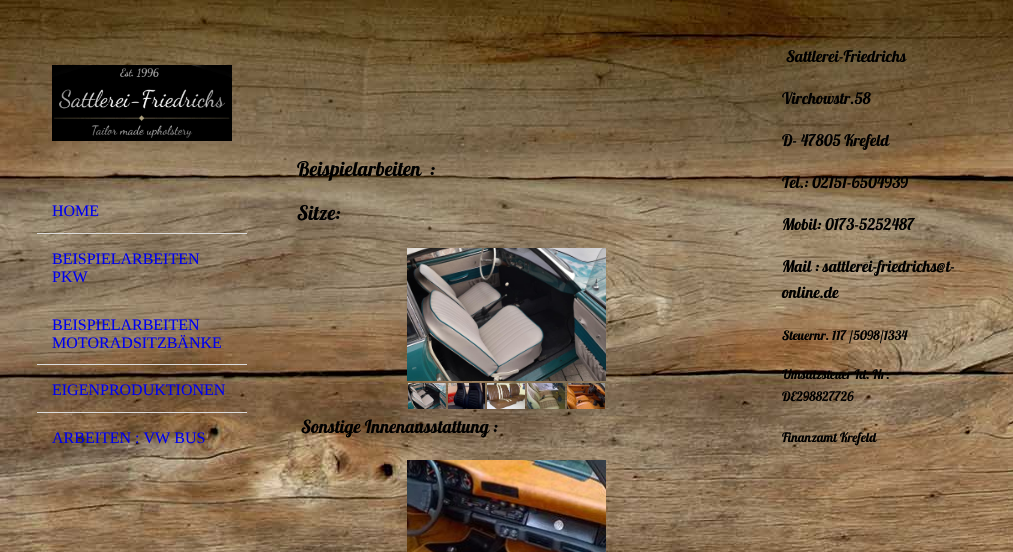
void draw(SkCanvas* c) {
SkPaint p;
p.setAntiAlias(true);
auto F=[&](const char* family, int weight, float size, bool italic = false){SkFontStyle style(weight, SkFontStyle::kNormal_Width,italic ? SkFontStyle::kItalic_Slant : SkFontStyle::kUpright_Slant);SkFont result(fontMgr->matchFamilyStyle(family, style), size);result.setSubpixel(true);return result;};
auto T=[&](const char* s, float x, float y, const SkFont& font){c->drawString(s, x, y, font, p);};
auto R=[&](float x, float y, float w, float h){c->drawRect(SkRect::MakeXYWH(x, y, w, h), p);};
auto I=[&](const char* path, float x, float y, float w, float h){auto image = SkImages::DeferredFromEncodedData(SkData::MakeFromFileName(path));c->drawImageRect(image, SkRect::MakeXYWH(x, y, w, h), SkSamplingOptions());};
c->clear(0xffffffff);
I("1.png",0,0,1013,552);
I("2.png",52,65,180,76);
p.setColor(0xffdcdcdc);
R(37,233,210,1);
auto f1 = F("Liberation Serif",400,16);
p.setColor(0xff0000ee);
T("HOME",52,216,f1);
T("BEISPIELARBEITEN",52,264,f1);
T("PKW",52,282,f1);
p.setColor(0xffdcdcdc);
R(37,364,210,1);
p.setColor(0xff0000ee);
T("BEISPIELARBEITEN",52,330,f1);
T("MOTORADSITZBÄNKE",52,348,f1);
p.setColor(0xffdcdcdc);
R(37,412,210,1);
p.setColor(0xff0000ee);
T("EIGENPRODUKTIONEN",52,395,f1);
T("ARBEITEN : VW BUS",52,443,f1);
auto f2 = F("Galada",400,20);
p.setColor(0xff000000);
T("Beispielarbeiten  :",297,176,f2);
T("Sitze:",297,220,f2);
I("3.png",407,248,199,133);
I("4.png",408,383,38,26);
I("5.png",448,383,37,26);
I("6.png",487,383,38,26);
I("7.png",527,383,38,26);
I("8.png",567,383,38,26);
auto f3 = F("Galada",400,18);
T("Sonstige Innenausstattung :",301,433,f3);
I("9.png",407,460,199,92);
auto f4 = F("Galada",400,16);
T("Sattlerei-Friedrichs",786,62,f4);
T("Virchowstr.58",782,104,f4);
T("D- 47805 Krefeld",782,146,f4);
T("Tel.: 02151-6504939",782,188,f4);
T("Mobil: 0173-5252487",782,230,f4);
T("Mail : sattlerei-friedrichs@t-",782,272,f4);
T("online.de",782,298,f4);
auto f5 = F("Galada",400,13);
T("Steuernr. 117 /5098/1334",782,340,f5);
T("Umsatzsteuer Id. Nr.",782,379,f5);
T("DE298827726",782,401,f5);
T("Finanzamt Krefeld",782,442,f5);
}
